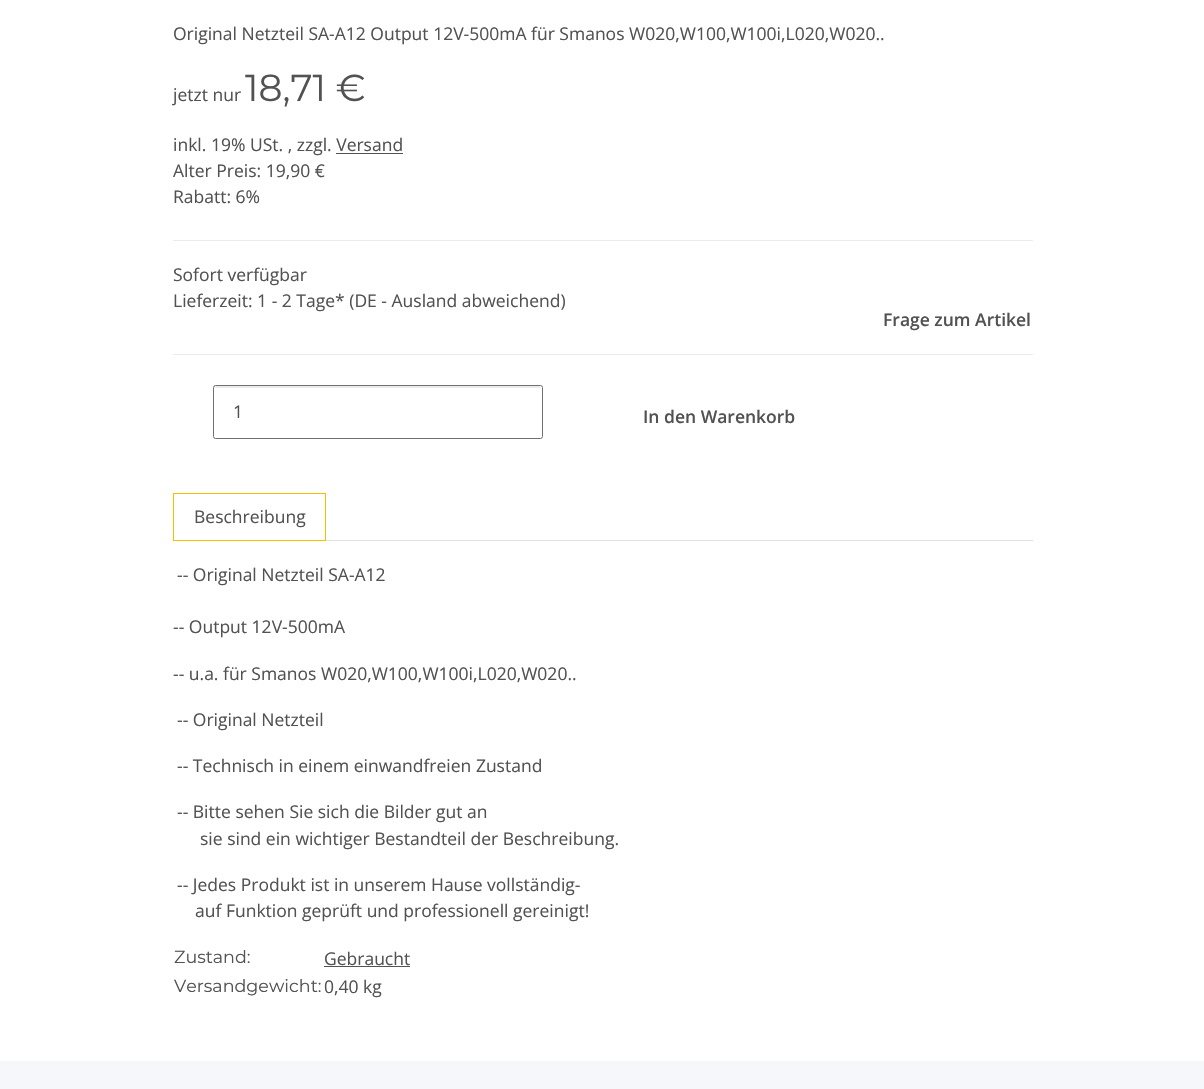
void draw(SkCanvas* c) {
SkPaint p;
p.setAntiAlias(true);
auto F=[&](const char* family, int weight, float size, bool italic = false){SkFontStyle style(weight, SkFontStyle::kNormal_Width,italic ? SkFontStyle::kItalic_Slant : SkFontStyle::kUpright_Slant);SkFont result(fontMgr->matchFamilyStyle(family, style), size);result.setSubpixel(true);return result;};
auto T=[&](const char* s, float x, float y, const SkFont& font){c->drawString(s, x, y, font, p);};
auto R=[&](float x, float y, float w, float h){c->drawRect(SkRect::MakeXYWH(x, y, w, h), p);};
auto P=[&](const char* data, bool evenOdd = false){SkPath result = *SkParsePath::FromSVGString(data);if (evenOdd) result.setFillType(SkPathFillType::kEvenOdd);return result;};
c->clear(0xfff5f7fa);
p.setColor(0xffffffff);
R(0,0,1204,1061);
auto f1 = F("Open Sans",400,17.5);
p.setColor(0xff525252);
T("Original Netzteil SA-A12 Output 12V-500mA für Smanos W020,W100,W100i,L020,W020..",173,40,f1);
T("jetzt nur",173,101,f1);
auto f2 = F("Montserrat",400,37.5);
T("18,71 €",245,101,f2);
T("inkl. 19% USt. , zzgl. Versand",173,151,f1);
R(336,153,67,1);
T("Alter Preis: 19,90 €",173,177,f1);
T("Rabatt: 6%",173,203,f1);
p.setColor(0xffebebeb);
R(173,240,860,1);
R(173,354,860,1);
p.setColor(0xff525252);
T("Sofort verfügbar",173,281,f1);
T("Lieferzeit: 1 - 2 Tage* (DE - Ausland abweichend)",173,307,f1);
auto f3 = F("Open Sans",600,17.5);
T("Frage zum Artikel",883,326,f3);
p.setColor(0xffececec);
c->drawPath(P("M215 388h325c1 0 1 0 1 1c0-1 0-3-1-3h-326v3c0-1 0-1 1-1z"),p);
p.setStroke(true);
p.setStrokeWidth(1);
p.setColor(0xff707070);
c->drawRoundRect(SkRect::MakeXYWH(213.5,385.5,329,53),2,2,p);
p.setStroke(false);
p.setColor(0xff525252);
T("1",233,418,f1);
T("In den Warenkorb",643,423,f3);
p.setColor(0xffdee2e6);
R(326,540,707,1);
p.setStroke(true);
p.setColor(0xfff8bf00);
c->drawRect(SkRect::MakeXYWH(173.5,493.5,152,47),p);
p.setStroke(false);
p.setColor(0xff525252);
T("Beschreibung",194,523,f1);
T("-- Original Netzteil SA-A12",177,581,f1);
T("-- Output 12V-500mA",173,633,f1);
T("-- u.a. für Smanos W020,W100,W100i,L020,W020..",173,680,f1);
T("-- Original Netzteil",177,726,f1);
T("-- Technisch in einem einwandfreien Zustand",177,772,f1);
T("-- Bitte sehen Sie sich die Bilder gut an",177,818,f1);
T("sie sind ein wichtiger Bestandteil der Beschreibung.",200,845,f1);
T("-- Jedes Produkt ist in unserem Hause vollständig-",177,891,f1);
T("auf Funktion geprüft und professionell gereinigt!",195,917,f1);
auto f4 = F("Montserrat",400,17.5);
T("Zustand:",174,963,f4);
T("Gebraucht",324,965,f1);
R(324,966,86,1);
T("Versandgewicht:",174,992,f4);
T("0,40 kg",324,993,f1);
}
